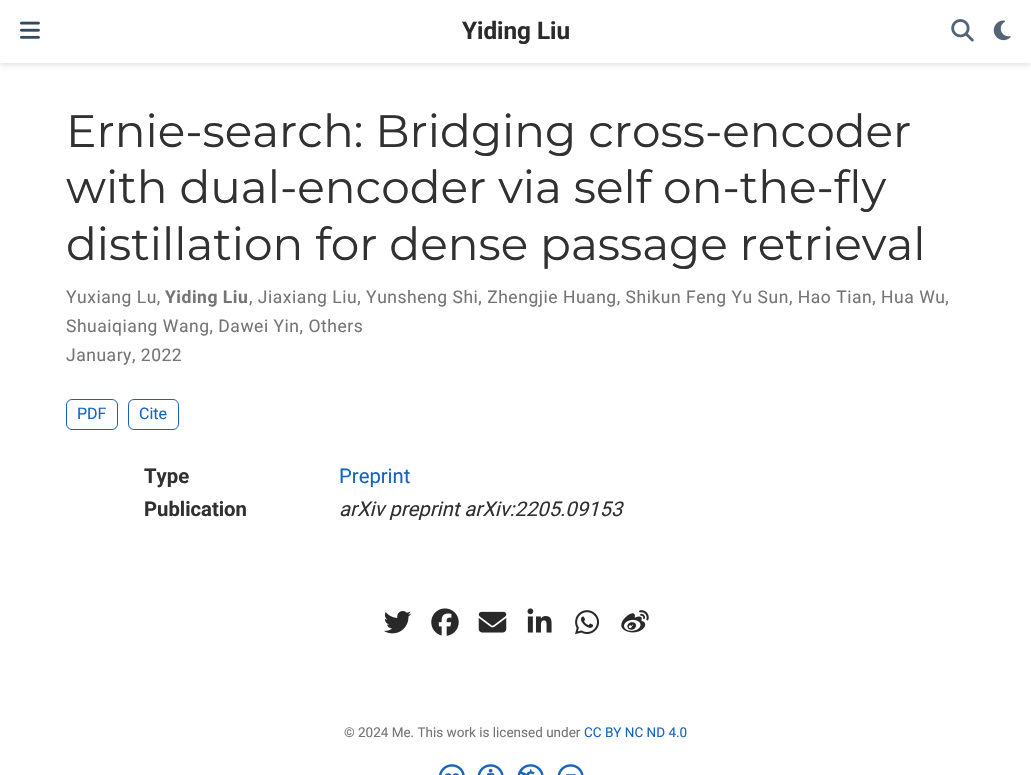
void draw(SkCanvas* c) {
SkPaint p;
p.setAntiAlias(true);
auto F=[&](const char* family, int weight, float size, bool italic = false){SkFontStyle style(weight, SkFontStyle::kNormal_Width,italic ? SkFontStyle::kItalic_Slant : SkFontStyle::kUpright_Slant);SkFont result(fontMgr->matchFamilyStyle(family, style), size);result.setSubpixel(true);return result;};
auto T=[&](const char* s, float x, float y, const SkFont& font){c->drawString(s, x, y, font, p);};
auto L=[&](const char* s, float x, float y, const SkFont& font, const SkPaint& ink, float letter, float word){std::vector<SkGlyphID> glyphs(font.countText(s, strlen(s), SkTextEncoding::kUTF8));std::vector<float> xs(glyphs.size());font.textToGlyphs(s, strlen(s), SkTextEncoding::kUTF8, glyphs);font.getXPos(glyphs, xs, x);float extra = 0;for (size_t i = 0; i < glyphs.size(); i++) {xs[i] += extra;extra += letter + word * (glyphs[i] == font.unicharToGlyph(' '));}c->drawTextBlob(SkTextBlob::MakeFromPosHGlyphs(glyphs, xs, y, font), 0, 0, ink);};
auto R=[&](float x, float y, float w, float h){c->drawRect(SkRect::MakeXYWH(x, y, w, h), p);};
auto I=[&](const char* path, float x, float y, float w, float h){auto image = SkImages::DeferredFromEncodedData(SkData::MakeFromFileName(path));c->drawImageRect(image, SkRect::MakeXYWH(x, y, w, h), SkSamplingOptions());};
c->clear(0xffffffff);
p.setColor(0x1c000000);
p.setMaskFilter(SkMaskFilter::MakeBlur(kNormal_SkBlurStyle, 2.5));
c->drawRect(SkRect::MakeXYWH(0,3,1031,62),p);
p.setMaskFilter(nullptr);
p.setColor(0xffffffff);
R(0,0,1031,63);
I("1.png",20,21,20,18);
auto f1 = F("Roboto",700,24.25);
p.setColor(0xff2b2b2b);
T("Yiding Liu",462,39,f1);
I("2.png",951,19,23,23);
I("3.png",993,20,18,21);
auto f2 = F("Montserrat",400,45.5);
p.setColor(0xff313131);
T("Ernie-search: Bridging cross-encoder",66,147,f2);
T("with dual-encoder via self on-the-fly",66,203,f2);
T("distillation for dense passage retrieval",66,260,f2);
auto f3 = F("Roboto",400,17.5);
p.setColor(0xff757575);
L("Yuxiang Lu,",66,303,f3,p,.53,0);
auto f4 = F("Roboto",700,17.5);
L("Yiding Liu",165,303,f4,p,.53,0);
L(", Jiaxiang Liu, Yunsheng Shi, Zhengjie Huang, Shikun Feng Yu Sun, Hao Tian, Hua Wu,",249,303,f3,p,.53,0);
L("Shuaiqiang Wang, Dawei Yin, Others",66,332,f3,p,.53,0);
L("January, 2022",66,361,f3,p,.53,0);
p.setStroke(true);
p.setStrokeWidth(1);
p.setColor(0xff1565c0);
c->drawRoundRect(SkRect::MakeXYWH(66.5,399.5,51,30),5.5,5.5,p);
auto f5 = F("Roboto",400,16);
p.setStroke(false);
T("PDF",77,419,f5);
p.setStroke(true);
c->drawRoundRect(SkRect::MakeXYWH(128.5,399.5,50,30),5.5,5.5,p);
p.setStroke(false);
T("Cite",139,419,f5);
auto f6 = F("Roboto",700,20.25);
p.setColor(0xff313131);
T("Type",144,483,f6);
auto f7 = F("Roboto",400,20.25);
p.setColor(0xff1565c0);
T("Preprint",339,483,f7);
p.setColor(0xff313131);
T("Publication",144,516,f6);
auto f8 = F("Roboto",400,20.25,true);
T("arXiv preprint arXiv:2205.09153",339,516,f8);
I("4.png",384,611,28,23);
I("5.png",431,608,28,28);
I("6.png",478,611,29,22);
I("7.png",527,608,25,25);
I("8.png",575,610,25,25);
I("9.png",621,610,28,23);
auto f9 = F("Roboto",400,13.5);
p.setColor(0xff757575);
T("© 2024 Me. This work is licensed under",344,737,f9);
p.setColor(0xff1565c0);
T("CC BY NC ND 4.0",584,737,f9);
I("10.png",439,764,26,11);
I("11.png",477,764,27,11);
I("12.png",517,764,27,11);
I("13.png",557,764,27,11);
}
